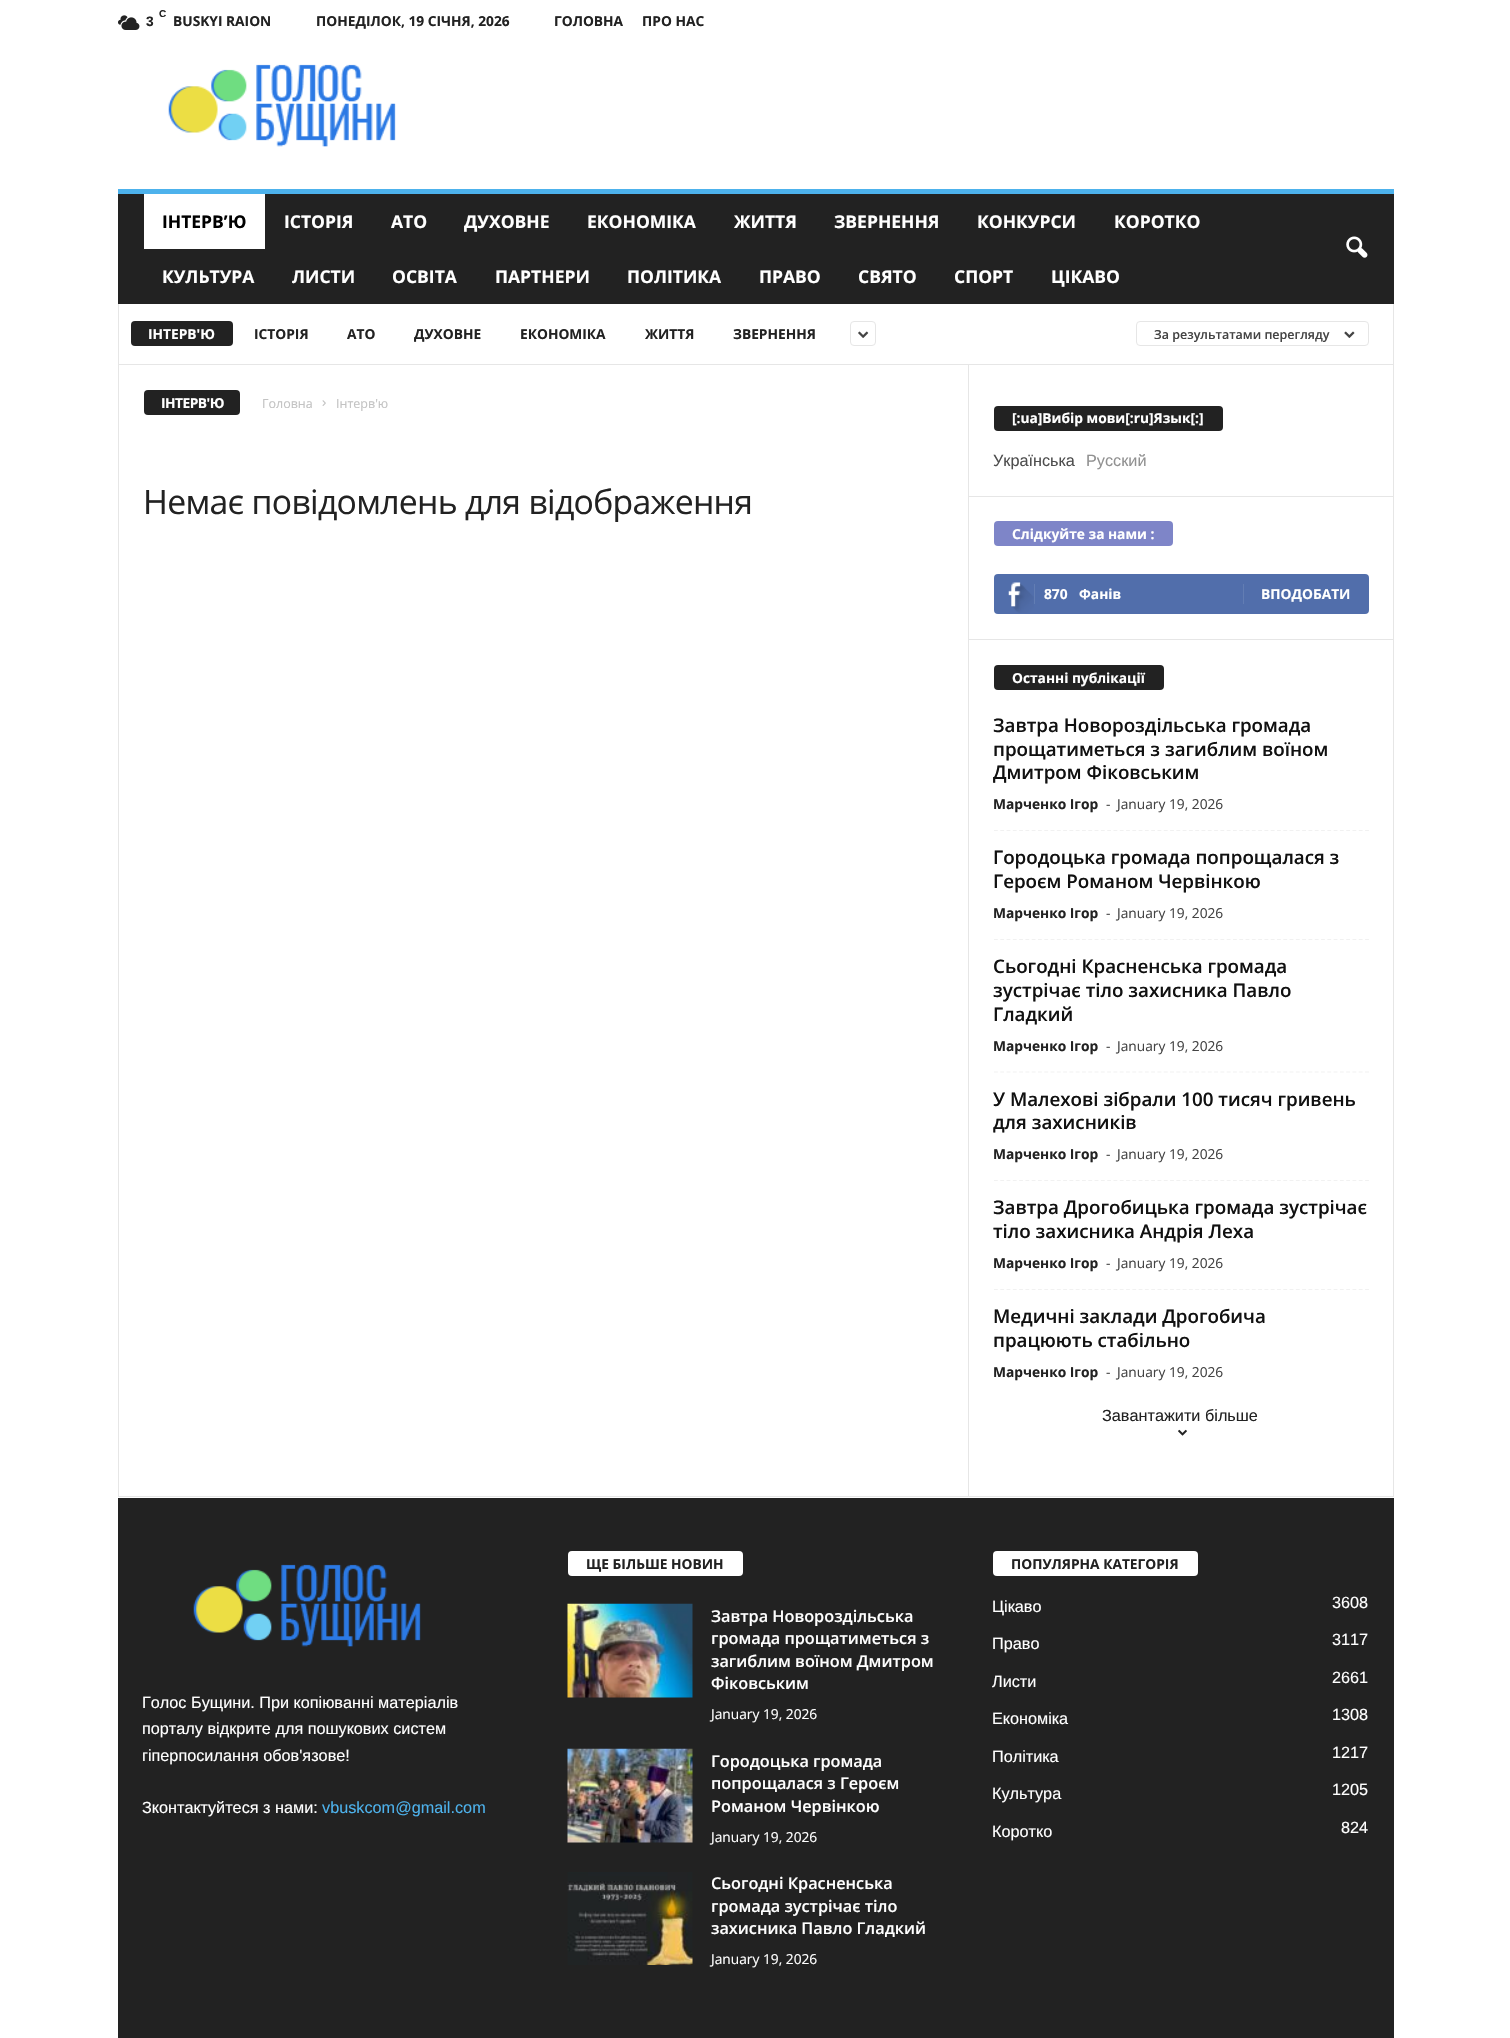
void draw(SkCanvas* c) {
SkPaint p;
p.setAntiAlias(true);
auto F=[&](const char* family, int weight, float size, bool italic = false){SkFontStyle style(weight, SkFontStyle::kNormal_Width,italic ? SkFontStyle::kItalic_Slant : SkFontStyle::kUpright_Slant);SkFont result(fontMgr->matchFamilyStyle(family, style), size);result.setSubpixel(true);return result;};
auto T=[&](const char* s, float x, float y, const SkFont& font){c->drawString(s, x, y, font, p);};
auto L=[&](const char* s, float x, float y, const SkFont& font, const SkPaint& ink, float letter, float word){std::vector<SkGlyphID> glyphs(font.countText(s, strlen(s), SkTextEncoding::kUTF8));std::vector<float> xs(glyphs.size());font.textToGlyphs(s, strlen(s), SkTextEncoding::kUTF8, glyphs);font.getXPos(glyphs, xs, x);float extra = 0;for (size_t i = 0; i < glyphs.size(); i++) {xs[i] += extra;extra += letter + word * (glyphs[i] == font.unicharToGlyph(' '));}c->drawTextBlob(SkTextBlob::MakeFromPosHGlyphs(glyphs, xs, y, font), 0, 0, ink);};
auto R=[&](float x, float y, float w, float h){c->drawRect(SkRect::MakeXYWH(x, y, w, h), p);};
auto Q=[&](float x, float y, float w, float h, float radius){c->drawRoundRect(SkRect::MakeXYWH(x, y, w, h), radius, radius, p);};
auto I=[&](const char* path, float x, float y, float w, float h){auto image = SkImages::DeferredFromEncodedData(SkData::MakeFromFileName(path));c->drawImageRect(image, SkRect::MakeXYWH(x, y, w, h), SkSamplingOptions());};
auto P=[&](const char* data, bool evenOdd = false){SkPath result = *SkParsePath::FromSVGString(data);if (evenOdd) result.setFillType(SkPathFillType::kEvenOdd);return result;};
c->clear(0xffffffff);
I("1.png",118,15,22,15);
auto f1 = F("Liberation Sans",700,10);
p.setColor(0xff222222);
T("C",159,17,f1);
auto f2 = F("Liberation Sans",700,13.75);
T("3",146,26,f2);
auto f3 = F("Open Sans",700,13.75);
T("BUSKYI RAION",173,26,f3);
T("ПОНЕДІЛОК, 19 СІЧНЯ, 2026",316,26,f3);
T("ГОЛОВНА",554,26,f3);
T("ПРО НАС",642,26,f3);
I("2.png",168,64,228,83);
R(118,194,1276,110);
p.setColor(0xff4db2ec);
R(118,189,1276,5);
p.setColor(0xffffffff);
R(144,194,121,55);
auto f4 = F("Open Sans",700,17.5);
p.setColor(0xff000000);
T("ІНТЕРВ’Ю",162,228,f4);
p.setColor(0xffffffff);
T("ІСТОРІЯ",284,228,f4);
T("АТО",391,228,f4);
T("ДУХОВНЕ",464,228,f4);
T("ЕКОНОМІКА",587,228,f4);
T("ЖИТТЯ",734,228,f4);
T("ЗВЕРНЕННЯ",834,228,f4);
T("КОНКУРСИ",977,228,f4);
T("КОРОТКО",1114,228,f4);
T("КУЛЬТУРА",162,283,f4);
T("ЛИСТИ",292,283,f4);
T("ОСВІТА",392,283,f4);
T("ПАРТНЕРИ",495,283,f4);
T("ПОЛІТИКА",627,283,f4);
T("ПРАВО",759,283,f4);
T("СВЯТО",858,283,f4);
T("СПОРТ",954,283,f4);
T("ЦІКАВО",1051,283,f4);
I("3.png",1346,236,22,22);
p.setColor(0xff222222);
Q(131,321,102,25,4);
p.setColor(0xffffffff);
T("ІНТЕРВ'Ю",148,339,f3);
p.setColor(0xff222222);
T("ІСТОРІЯ",254,339,f3);
T("АТО",347,339,f3);
T("ДУХОВНЕ",414,339,f3);
T("ЕКОНОМІКА",520,339,f3);
T("ЖИТТЯ",645,339,f3);
T("ЗВЕРНЕННЯ",733,339,f3);
p.setStroke(true);
p.setStrokeWidth(1);
p.setColor(0xffe6e6e6);
c->drawRoundRect(SkRect::MakeXYWH(850.5,321.5,25,24),3.5,3.5,p);
I("4.png",858,331,11,7);
c->drawRoundRect(SkRect::MakeXYWH(1136.5,321.5,232,24),3.5,3.5,p);
auto f5 = F("Open Sans",600,12.5);
p.setStroke(false);
p.setColor(0xff444444);
T("За результатами перегляду",1154,339,f5);
I("5.png",1344,331,11,7);
p.setColor(0xffe6e6e6);
R(118,1496,1276,1);
R(1393,304,1,1192);
R(118,364,1276,1);
R(118,304,1,1192);
p.setColor(0xff222222);
Q(144,390,96,25,4);
p.setColor(0xffffffff);
L("ІНТЕРВ'Ю",161,408,f3,p,-.5,0);
auto f6 = F("Open Sans",400,12.5);
p.setColor(0xffc3c3c3);
T("Головна",262,408,f6);
I("6.png",322,400,4,6);
T("Інтерв'ю",336,408,f6);
auto f7 = F("Open Sans",400,33.75);
p.setColor(0xff222222);
L("Немає повідомлень для відображення",143,514,f7,p,-.7,0);
p.setColor(0xffe6e6e6);
R(968,365,1,1131);
p.setColor(0xff222222);
Q(994,406,229,25,4);
p.setColor(0xffffffff);
T("[:ua]Вибір мови[:ru]Язык[:]",1012,423,f3);
auto f8 = F("Liberation Sans",400,16.25);
p.setColor(0xff4e4e4e);
T("Українська",993,466,f8);
p.setColor(0xff919191);
T("Русский",1086,466,f8);
p.setColor(0xffe6e6e6);
R(969,496,424,1);
p.setColor(0xff7e85c8);
Q(994,521,179,25,4);
p.setColor(0xffffffff);
T("Слідкуйте за нами :",1012,539,f3);
p.setColor(0xff516eab);
Q(994,574,375,40,4);
I("7.png",1008,582,26,31);
p.setColor(0xff627db3);
R(1034,584,1,20);
p.setColor(0xffffffff);
T("870",1044,599,f3);
T("Фанів",1079,599,f3);
p.setColor(0xff627db3);
R(1243,584,1,20);
p.setColor(0xffffffff);
T("ВПОДОБАТИ",1261,599,f3);
p.setColor(0xffe6e6e6);
R(969,639,424,1);
p.setColor(0xff222222);
Q(994,665,170,25,4);
p.setColor(0xffffffff);
T("Останні публікації",1012,683,f3);
p.setStroke(true);
p.setStrokeWidth(1.2);
p.setColor(0xfff1f1f1);
p.setPathEffect(SkDashPathEffect::Make({{3.75f,2.54f}}, 0));
c->drawPath(P("M994 830.5h375"),p);
p.setPathEffect(nullptr);
auto f9 = F("Open Sans",600,18.75);
p.setStroke(false);
p.setColor(0xff111111);
T("Завтра Новороздільська громада",993,732,f9);
T("прощатиметься з загиблим воїном",993,756,f9);
T("Дмитром Фіковським",993,779,f9);
p.setColor(0xff222222);
T("Марченко Ігор",993,809,f3);
auto f10 = F("Open Sans",400,13.75);
p.setColor(0xff444444);
T("-",1106,809,f10);
T("January 19, 2026",1117,809,f10);
p.setStroke(true);
p.setColor(0xfff1f1f1);
p.setPathEffect(SkDashPathEffect::Make({{3.75f,2.54f}}, 0));
c->drawPath(P("M994 939.5h375"),p);
p.setPathEffect(nullptr);
p.setStroke(false);
p.setColor(0xff111111);
T("Городоцька громада попрощалася з",993,864,f9);
T("Героєм Романом Червінкою",993,888,f9);
p.setColor(0xff222222);
T("Марченко Ігор",993,918,f3);
p.setColor(0xff444444);
T("-",1106,918,f10);
T("January 19, 2026",1117,918,f10);
p.setStroke(true);
p.setColor(0xfff1f1f1);
p.setPathEffect(SkDashPathEffect::Make({{3.75f,2.54f}}, 0));
c->drawPath(P("M994 1072h375"),p);
p.setPathEffect(nullptr);
p.setStroke(false);
p.setColor(0xff111111);
T("Сьогодні Красненська громада",993,973,f9);
T("зустрічає тіло захисника Павло",993,997,f9);
T("Гладкий",993,1021,f9);
p.setColor(0xff222222);
T("Марченко Ігор",993,1051,f3);
p.setColor(0xff444444);
T("-",1106,1051,f10);
T("January 19, 2026",1117,1051,f10);
p.setStroke(true);
p.setColor(0xfff1f1f1);
p.setPathEffect(SkDashPathEffect::Make({{3.75f,2.54f}}, 0));
c->drawPath(P("M994 1180.5h375"),p);
p.setPathEffect(nullptr);
p.setStroke(false);
p.setColor(0xff111111);
T("У Малехові зібрали 100 тисяч гривень",993,1106,f9);
T("для захисників",993,1129,f9);
p.setColor(0xff222222);
T("Марченко Ігор",993,1159,f3);
p.setColor(0xff444444);
T("-",1106,1159,f10);
T("January 19, 2026",1117,1159,f10);
p.setStroke(true);
p.setColor(0xfff1f1f1);
p.setPathEffect(SkDashPathEffect::Make({{3.75f,2.54f}}, 0));
c->drawPath(P("M994 1289.5h375"),p);
p.setPathEffect(nullptr);
p.setStroke(false);
p.setColor(0xff111111);
T("Завтра Дрогобицька громада зустрічає",993,1214,f9);
T("тіло захисника Андрія Леха",993,1238,f9);
p.setColor(0xff222222);
T("Марченко Ігор",993,1268,f3);
p.setColor(0xff444444);
T("-",1106,1268,f10);
T("January 19, 2026",1117,1268,f10);
p.setColor(0xff111111);
T("Медичні заклади Дрогобича",993,1323,f9);
T("працюють стабільно",993,1347,f9);
p.setColor(0xff222222);
T("Марченко Ігор",993,1377,f3);
p.setColor(0xff444444);
T("-",1106,1377,f10);
T("January 19, 2026",1117,1377,f10);
p.setColor(0xff222222);
T("Завантажити більше",1102,1421,f8);
I("8.png",1178,1429,9,7);
R(118,1498,1276,540);
I("9.png",193,1564,228,83);
p.setColor(0xffffffff);
T("Голос Бущини. При копіюванні матеріалів",142,1708,f8);
T("порталу відкрите для пошукових систем",142,1734,f8);
T("гіперпосилання обов'язове!",142,1761,f8);
T("Зконтактуйтеся з нами:",142,1813,f8);
p.setColor(0xff4db2ec);
T("vbuskcom@gmail.com",322,1813,f8);
p.setColor(0xffffffff);
Q(568,1551,175,25,4);
p.setColor(0xff222222);
T("ЩЕ БІЛЬШЕ НОВИН",586,1569,f3);
I("10.png",567,1603,126,95);
auto f11 = F("Open Sans",600,16.25);
p.setColor(0xffffffff);
T("Завтра Новороздільська",711,1622,f11);
T("громада прощатиметься з",711,1644,f11);
T("загиблим воїном Дмитром",711,1667,f11);
T("Фіковським",711,1689,f11);
T("January 19, 2026",711,1719,f10);
I("11.png",567,1748,126,95);
T("Городоцька громада",711,1767,f11);
T("попрощалася з Героєм",711,1789,f11);
T("Романом Червінкою",711,1812,f11);
T("January 19, 2026",711,1842,f10);
I("12.png",567,1872,126,93);
T("Сьогодні Красненська",711,1889,f11);
T("громада зустрічає тіло",711,1912,f11);
T("захисника Павло Гладкий",711,1934,f11);
T("January 19, 2026",711,1964,f10);
Q(993,1551,205,25,4);
p.setColor(0xff222222);
T("ПОПУЛЯРНА КАТЕГОРІЯ",1011,1569,f3);
p.setColor(0xffffffff);
T("Цікаво",992,1612,f8);
T("3608",1332,1608,f8);
T("Право",992,1649,f8);
T("3117",1332,1645,f8);
T("Листи",992,1687,f8);
T("2661",1332,1683,f8);
T("Економіка",992,1724,f8);
T("1308",1332,1720,f8);
T("Політика",992,1762,f8);
T("1217",1332,1758,f8);
T("Культура",992,1799,f8);
T("1205",1332,1795,f8);
T("Коротко",992,1837,f8);
T("824",1341,1833,f8);
}
